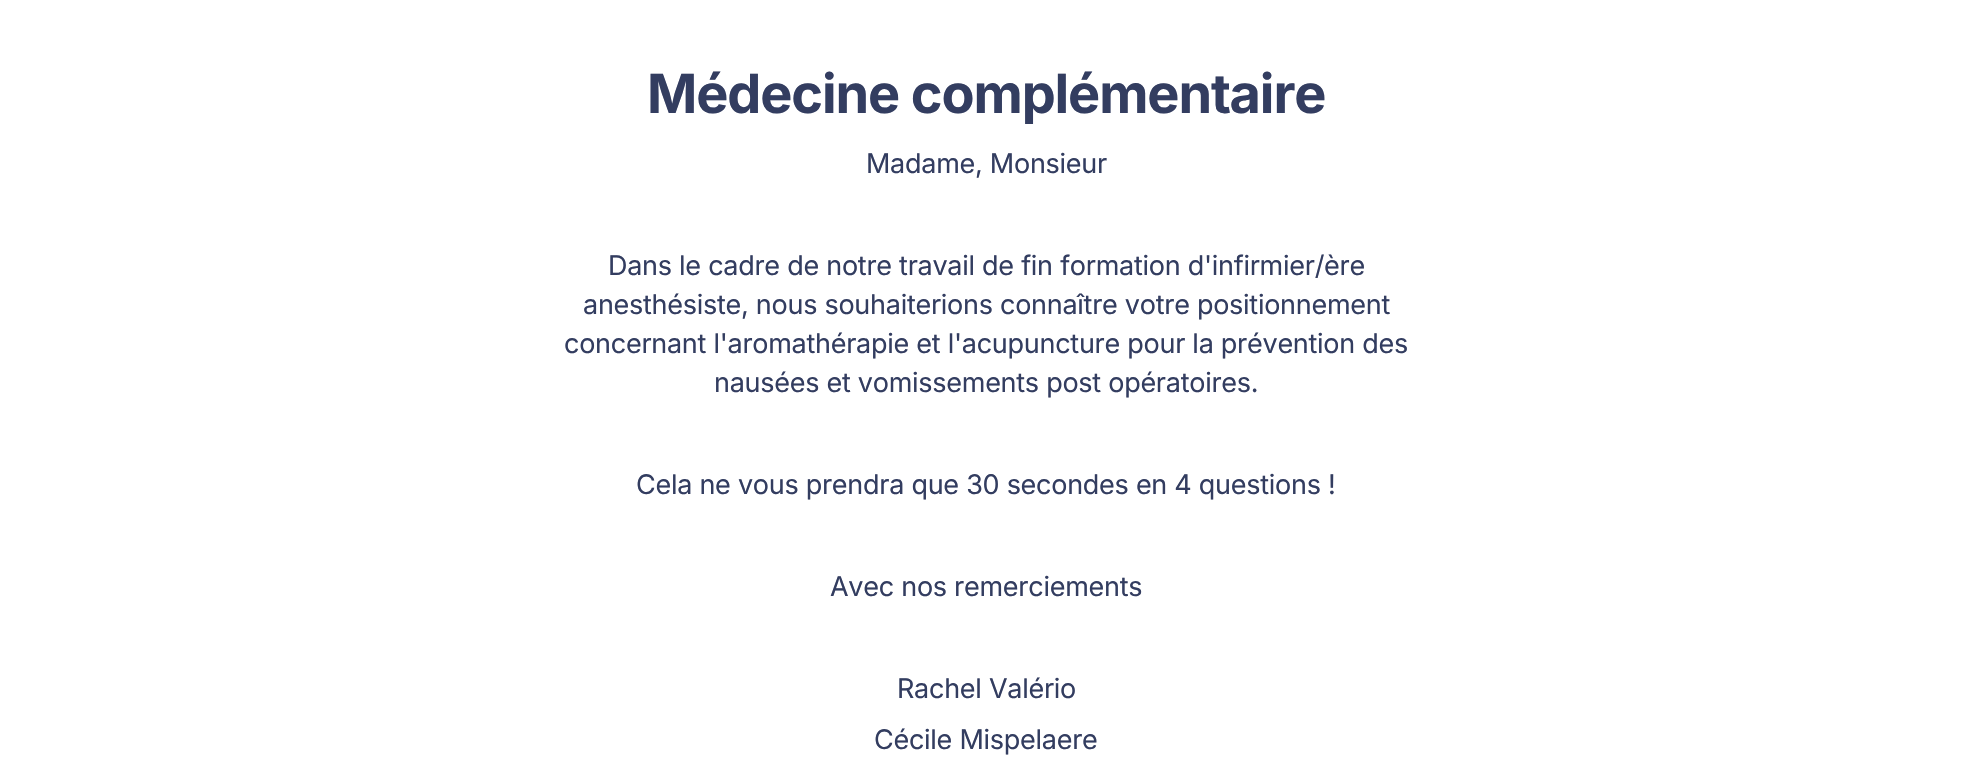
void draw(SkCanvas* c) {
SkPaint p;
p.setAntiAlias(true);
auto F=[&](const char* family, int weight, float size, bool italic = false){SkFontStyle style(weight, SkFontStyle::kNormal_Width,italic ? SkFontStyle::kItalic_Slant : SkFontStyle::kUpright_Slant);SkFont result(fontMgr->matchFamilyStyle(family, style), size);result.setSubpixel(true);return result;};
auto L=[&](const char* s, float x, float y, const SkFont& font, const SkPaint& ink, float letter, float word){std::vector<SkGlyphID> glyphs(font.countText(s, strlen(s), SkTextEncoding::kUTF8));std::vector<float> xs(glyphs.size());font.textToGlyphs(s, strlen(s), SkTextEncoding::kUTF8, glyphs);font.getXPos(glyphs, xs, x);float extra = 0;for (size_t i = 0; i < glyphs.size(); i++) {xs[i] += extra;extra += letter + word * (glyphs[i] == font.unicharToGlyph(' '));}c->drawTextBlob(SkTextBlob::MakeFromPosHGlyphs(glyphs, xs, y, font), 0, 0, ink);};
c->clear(0xffffffff);
auto f1 = F("Inter",700,54);
p.setColor(0xff333d60);
L("Médecine complémentaire",647,113,f1,p,-1.1,0);
auto f2 = F("Inter",400,27);
L("Madame, Monsieur",866,173,f2,p,-.27,0);
L("Dans le cadre de notre travail de fin formation d'infirmier/ère",608,275,f2,p,-.27,0);
L("anesthésiste, nous souhaiterions connaître votre positionnement",583,314,f2,p,-.27,0);
L("concernant l'aromathérapie et l'acupuncture pour la prévention des",564,353,f2,p,-.27,0);
L("nausées et vomissements post opératoires.",714,392,f2,p,-.27,0);
L("Cela ne vous prendra que 30 secondes en 4 questions !",636,494,f2,p,-.27,0);
L("Avec nos remerciements",830,596,f2,p,-.27,0);
L("Rachel Valério",897,698,f2,p,-.27,0);
L("Cécile Mispelaere",874,749,f2,p,-.27,0);
}
